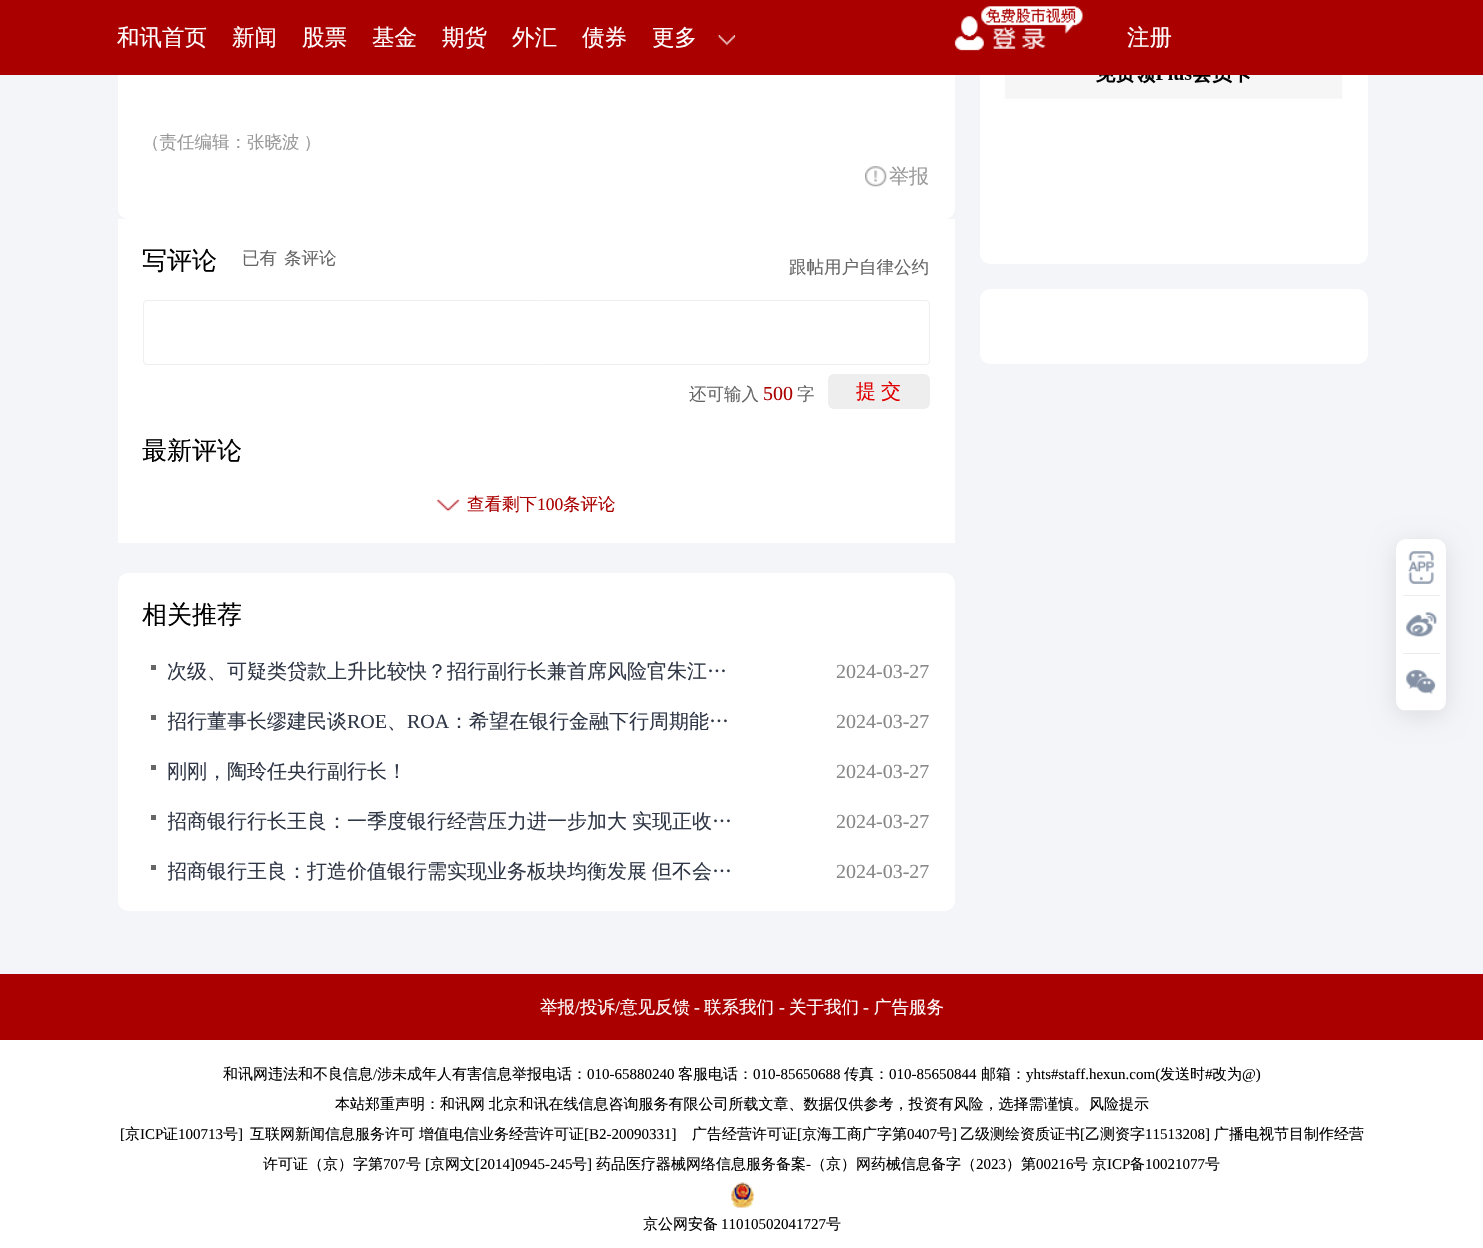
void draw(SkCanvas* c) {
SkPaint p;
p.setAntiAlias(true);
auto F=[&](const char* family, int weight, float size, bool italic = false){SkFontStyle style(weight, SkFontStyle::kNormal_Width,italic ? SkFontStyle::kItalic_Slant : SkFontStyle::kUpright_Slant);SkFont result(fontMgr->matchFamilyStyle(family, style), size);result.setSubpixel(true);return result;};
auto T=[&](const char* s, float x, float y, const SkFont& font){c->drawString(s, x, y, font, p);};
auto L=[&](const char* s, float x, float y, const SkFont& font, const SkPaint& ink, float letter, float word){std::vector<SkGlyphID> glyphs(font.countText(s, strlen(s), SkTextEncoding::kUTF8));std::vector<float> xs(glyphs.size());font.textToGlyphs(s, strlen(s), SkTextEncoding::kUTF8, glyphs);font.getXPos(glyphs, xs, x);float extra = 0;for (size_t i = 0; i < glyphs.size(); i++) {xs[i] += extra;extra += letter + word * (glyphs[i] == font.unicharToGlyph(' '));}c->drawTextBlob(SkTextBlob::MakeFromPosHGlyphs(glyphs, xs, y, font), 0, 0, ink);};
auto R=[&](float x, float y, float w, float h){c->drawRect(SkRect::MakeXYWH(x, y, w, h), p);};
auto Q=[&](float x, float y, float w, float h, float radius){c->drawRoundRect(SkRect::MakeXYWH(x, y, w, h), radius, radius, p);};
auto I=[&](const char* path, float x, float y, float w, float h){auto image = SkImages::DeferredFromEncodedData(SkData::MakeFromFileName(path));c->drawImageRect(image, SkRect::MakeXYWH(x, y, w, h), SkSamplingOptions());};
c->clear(0xffffffff);
p.setColor(0xfff4f5f9);
R(0,75,1483,899);
p.setColor(0xffffffff);
Q(118,-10,837,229,10);
Q(980,-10,388,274,10);
p.setColor(0xffaa0000);
R(0,0,1483,75);
auto f1 = F("WenQuanYi Zen Hei",500,22.5);
p.setColor(0xffffffff);
T("和讯首页",117,45,f1);
T("新闻",232,45,f1);
T("股票",302,45,f1);
T("基金",372,45,f1);
T("期货",442,45,f1);
T("外汇",512,45,f1);
T("债券",582,45,f1);
I("1.png",718,35,17,11);
T("更多",652,45,f1);
I("2.png",954,6,129,45);
T("注册",1127,45,f1);
auto f2 = F("WenQuanYi Zen Hei",500,17.5);
p.setColor(0xff999999);
L("（责任编辑：张晓波 ）",142,148,f2,p,0,-1);
I("3.png",865,166,22,21);
auto f3 = F("WenQuanYi Zen Hei",500,20);
T("举报",889,183,f3);
p.setColor(0xffffffff);
R(118,219,837,324);
auto f4 = F("WenQuanYi Zen Hei",500,25);
p.setColor(0xff000000);
T("写评论",142,269,f4);
p.setColor(0xff666666);
T("已有",242,264,f2);
T("条评论",284,264,f2);
T("跟帖用户自律公约",789,273,f2);
p.setStroke(true);
p.setStrokeWidth(1);
p.setColor(0xffeeeeee);
c->drawRoundRect(SkRect::MakeXYWH(143.5,300.5,786,64),3.5,3.5,p);
p.setStroke(false);
p.setColor(0xff666666);
T("还可输入",689,400,f2);
auto f5 = F("Liberation Serif",400,20);
p.setColor(0xffaa0000);
T("500",763,400,f5);
p.setColor(0xff666666);
T("字",797,400,f2);
p.setColor(0xffeeeeee);
Q(828,374,102,35,6);
p.setColor(0xffdf0000);
L("提 交",856,398,f3,p,0,-1);
p.setColor(0xff000000);
T("最新评论",142,459,f4);
I("4.png",436,498,24,14);
p.setColor(0xffaa0000);
T("查看剩下",467,510,f2);
auto f6 = F("Liberation Serif",400,17.5);
T("100",537,510,f6);
T("条评论",563,510,f2);
p.setColor(0xffffffff);
Q(118,573,837,338,10);
p.setColor(0xff000000);
T("相关推荐",142,623,f4);
p.setColor(0xff666666);
R(151,665,5,5);
p.setColor(0xff303746);
T("次级、可疑类贷款上升比较快？招行副行长兼首席风险官朱江…",167,678,f3);
p.setColor(0xff888888);
T("2024-03-27",836,678,f5);
p.setColor(0xff666666);
R(151,715,5,5);
c->save();
c->clipRect(SkRect::MakeXYWH(168,706,575,30));
p.setColor(0xff303746);
T("招行董事长缪建民谈",167,728,f3);
c->restore();
T("ROE",347,728,f5);
T("、",387,728,f3);
T("ROA",407,728,f5);
L("：希望在银行金融下行周期能…",449,728,f3,p,0,-1);
p.setColor(0xff888888);
T("2024-03-27",836,728,f5);
p.setColor(0xff666666);
R(151,765,5,5);
p.setColor(0xff303746);
T("刚刚，陶玲任央行副行长！",167,778,f3);
p.setColor(0xff888888);
T("2024-03-27",836,778,f5);
p.setColor(0xff666666);
R(151,815,5,5);
c->save();
c->clipRect(SkRect::MakeXYWH(168,806,575,30));
p.setColor(0xff303746);
L("招商银行行长王良：一季度银行经营压力进一步加大 实现正收…",167,828,f3,p,0,-1);
c->restore();
p.setColor(0xff888888);
T("2024-03-27",836,828,f5);
p.setColor(0xff666666);
R(151,865,5,5);
c->save();
c->clipRect(SkRect::MakeXYWH(168,856,575,30));
p.setColor(0xff303746);
L("招商银行王良：打造价值银行需实现业务板块均衡发展 但不会…",167,878,f3,p,0,-1);
c->restore();
p.setColor(0xff888888);
T("2024-03-27",836,878,f5);
I("5.png",1005,75,338,24);
p.setColor(0xffffffff);
Q(980,289,388,75,10);
p.setColor(0x1a000000);
p.setMaskFilter(SkMaskFilter::MakeBlur(kNormal_SkBlurStyle, 12.5));
c->drawRoundRect(SkRect::MakeXYWH(1396,544,50,172),10,10,p);
p.setMaskFilter(nullptr);
p.setColor(0xffffffff);
Q(1396,539,50,172,10);
I("6.png",1408,551,26,33);
p.setColor(0xffebeced);
R(1403,595,37,1);
I("7.png",1406,612,31,25);
R(1403,653,37,1);
I("8.png",1406,669,30,25);
R(1403,710,37,1);
p.setColor(0xffaa0000);
R(0,974,1483,66);
p.setColor(0xffffffff);
T("举报",540,1013,f2);
T("/",575,1013,f6);
T("投诉",580,1013,f2);
T("/",615,1013,f6);
T("意见反馈",620,1013,f2);
T("-",694,1013,f6);
T("联系我们",704,1013,f2);
T("-",779,1013,f6);
T("关于我们",789,1013,f2);
T("-",863,1013,f6);
T("广告服务",874,1013,f2);
auto f7 = F("WenQuanYi Zen Hei",500,15);
p.setColor(0xff000000);
T("和讯网违法和不良信息",223,1079,f7);
auto f8 = F("Liberation Serif",400,15);
T("/",373,1079,f8);
T("涉未成年人有害信息举报电话：",377,1079,f7);
T("010-65880240",587,1079,f8);
T("客服电话：",678,1079,f7);
T("010-85650688",753,1079,f8);
T("传真：",844,1079,f7);
T("010-85650844",889,1079,f8);
T("邮箱：",981,1079,f7);
T("yhts#staff.hexun.com(",1026,1079,f8);
T("发送时",1160,1079,f7);
T("#",1205,1079,f8);
T("改为",1212,1079,f7);
T("@)",1242,1079,f8);
L("本站郑重声明：和讯网 北京和讯在线信息咨询服务有限公司所载文章、数据仅供参考，投资有风险，选择需谨慎。",335,1109,f7,p,0,-1);
T("风险提示",1089,1109,f7);
T("[",120,1139,f8);
T("京",125,1139,f7);
T("ICP",140,1139,f8);
T("证",163,1139,f7);
T("100713",178,1139,f8);
T("号",223,1139,f7);
T("]",238,1139,f8);
T("互联网新闻信息服务许可",250,1139,f7);
T("增值电信业务经营许可证",419,1139,f7);
T("[B2-20090331]",584,1139,f8);
T("广告经营许可证",692,1139,f7);
T("[",797,1139,f8);
T("京海工商广字第",802,1139,f7);
T("0407",907,1139,f8);
T("号",937,1139,f7);
T("]",952,1139,f8);
T("乙级测绘资质证书",960,1139,f7);
T("[",1080,1139,f8);
T("乙测资字",1085,1139,f7);
T("11513208]",1145,1139,f8);
T("广播电视节目制作经营",1214,1139,f7);
T("许可证（京）字第",263,1169,f7);
T("707",383,1169,f8);
T("号",406,1169,f7);
T("[",425,1169,f8);
T("京网文",430,1169,f7);
T("[2014]0945-245",475,1169,f8);
T("号",572,1169,f7);
T("]",587,1169,f8);
T("药品医疗器械网络信息服务备案",596,1169,f7);
T("-",806,1169,f8);
T("（京）网药械信息备字（",811,1169,f7);
T("2023",976,1169,f8);
T("）第",1006,1169,f7);
T("00216",1036,1169,f8);
T("号",1073,1169,f7);
T("京",1092,1169,f7);
T("ICP",1107,1169,f8);
T("备",1130,1169,f7);
T("10021077",1145,1169,f8);
T("号",1205,1169,f7);
I("9.png",731,1182,23,26);
T("京公网安备",643,1229,f7);
T("11010502041727",721,1229,f8);
T("号",826,1229,f7);
}
